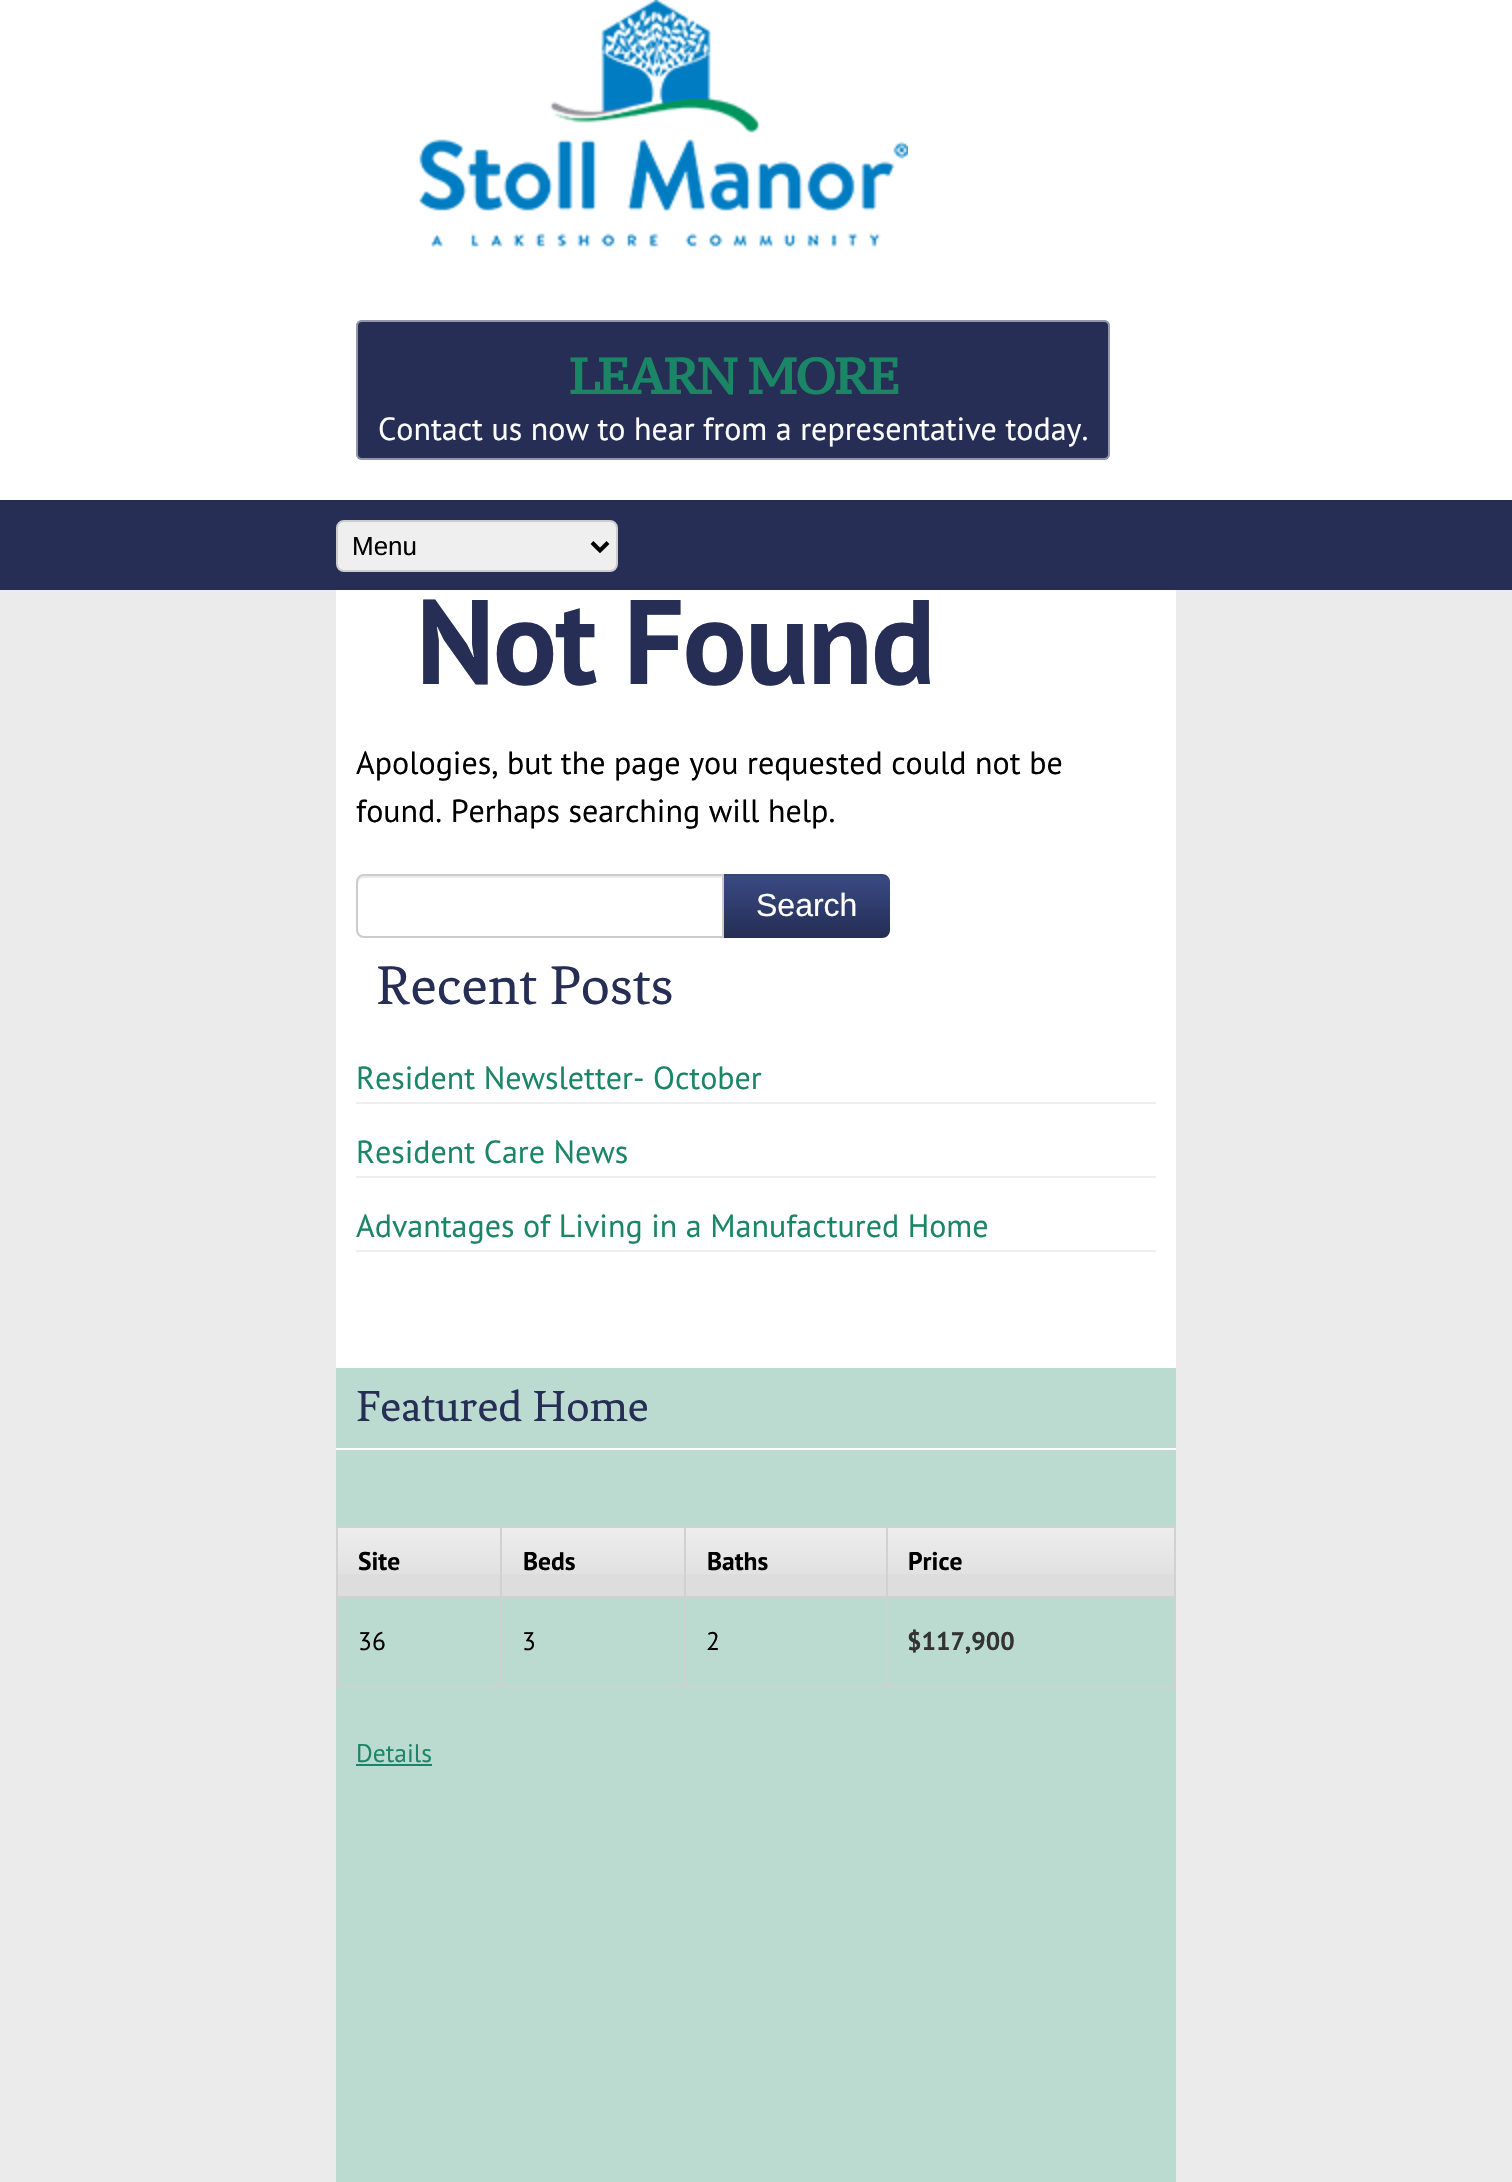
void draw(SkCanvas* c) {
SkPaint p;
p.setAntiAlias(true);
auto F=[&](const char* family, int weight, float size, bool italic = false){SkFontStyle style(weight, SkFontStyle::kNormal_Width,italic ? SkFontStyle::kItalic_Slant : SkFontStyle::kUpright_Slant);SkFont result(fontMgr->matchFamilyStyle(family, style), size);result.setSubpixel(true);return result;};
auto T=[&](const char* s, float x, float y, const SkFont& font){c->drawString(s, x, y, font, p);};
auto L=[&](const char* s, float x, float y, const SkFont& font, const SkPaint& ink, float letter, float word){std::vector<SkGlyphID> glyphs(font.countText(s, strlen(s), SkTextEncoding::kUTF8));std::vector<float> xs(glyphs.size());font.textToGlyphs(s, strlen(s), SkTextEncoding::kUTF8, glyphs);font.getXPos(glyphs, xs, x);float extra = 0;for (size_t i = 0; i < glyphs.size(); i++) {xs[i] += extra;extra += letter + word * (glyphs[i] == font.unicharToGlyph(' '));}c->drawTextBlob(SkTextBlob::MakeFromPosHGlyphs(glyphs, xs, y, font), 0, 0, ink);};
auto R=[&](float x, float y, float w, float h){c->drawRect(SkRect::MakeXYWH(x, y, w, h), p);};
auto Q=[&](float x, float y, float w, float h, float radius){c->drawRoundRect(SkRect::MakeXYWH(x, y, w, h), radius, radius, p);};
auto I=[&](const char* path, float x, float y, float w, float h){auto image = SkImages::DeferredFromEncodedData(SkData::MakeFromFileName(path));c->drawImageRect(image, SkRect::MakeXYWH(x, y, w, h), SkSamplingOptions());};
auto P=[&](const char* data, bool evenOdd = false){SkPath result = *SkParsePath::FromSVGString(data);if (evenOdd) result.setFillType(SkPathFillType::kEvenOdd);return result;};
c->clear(0xffebebeb);
p.setColor(0xffffffff);
R(0,0,1512,500);
I("1.png",419,0,489,247);
p.setColor(0xff262e55);
Q(356,320,754,140,6);
p.setStroke(true);
p.setStrokeWidth(2);
p.setColor(0x80ffffff);
c->drawRoundRect(SkRect::MakeXYWH(357,321,752,138),5,5,p);
auto f1 = F("PT Serif Caption",700,50);
p.setStroke(false);
p.setColor(0xff1b8666);
L("LEARN MORE",569,394,f1,p,-2,0);
auto f2 = F("PT Sans",400,32);
p.setColor(0xffffffff);
T("Contact us now to hear from a representative today.",378,440,f2);
p.setColor(0xff262e55);
R(0,500,1512,90);
p.setColor(0xffefefef);
c->drawRoundRect(SkRect::MakeXYWH(337,521,280,50),7,7,p);
p.setStroke(true);
p.setColor(0xffcccccc);
c->drawRoundRect(SkRect::MakeXYWH(337,521,280,50),7,7,p);
p.setStrokeWidth(4);
p.setColor(0xff000000);
c->drawPath(P("M592 542.5l8 8l8-8"),p);
auto f3 = F("Liberation Sans",400,26);
p.setStroke(false);
T("Menu",352,555,f3);
p.setColor(0xffffffff);
R(336,590,840,778);
auto f4 = F("PT Sans",700,120);
p.setColor(0xff262e55);
L("Not Found",416,684,f4,p,-2,0);
p.setColor(0xff000000);
T("Apologies, but the page you requested could not be",356,774,f2);
T("found. Perhaps searching will help.",356,822,f2);
p.setColor(0xffececec);
c->drawPath(P("M364 878h358v-2h-358c-3 0-6 3-6 6v2c0-3 3-6 6-6z"),p);
p.setStroke(true);
p.setStrokeWidth(2);
p.setColor(0xffcccccc);
c->drawPath(P("M364 875h359v62h-359c-4 0-7-3-7-7v-48c0-4 3-7 7-7z"),p);
p.setStroke(false);
{
const SkColor colors[] = {0xff3a4a85,0xff242e53};
const float stops[] = {0,1};
const SkPoint ends[] = {{807,874}, {807,938}};
p.setShader(SkGradientShader::MakeLinear(ends, colors, stops, 2, SkTileMode::kClamp));
p.setAlpha(255);
}
c->drawPath(P("M724 874h158c4.5 0 8 3.5 8 8v48c0 4.5-3.5 8-8 8h-158z"),p);
p.setShader(nullptr);
p.setColor(0x12000000);
c->drawPath(P("M724 876h158c4 0 8 4 8 8v-2c0-4-4-8-8-8h-158z"),p);
auto f5 = F("Liberation Sans",400,32);
p.setColor(0xffffffff);
T("Search",756,916,f5);
auto f6 = F("Fenix",400,57.5);
p.setColor(0xff262e55);
T("Recent Posts",376,1004,f6);
p.setColor(0xffeeeeee);
R(356,1102,800,2);
p.setColor(0xff1b8666);
T("Resident Newsletter- October",356,1089,f2);
p.setColor(0xffeeeeee);
R(356,1176,800,2);
p.setColor(0xff1b8666);
T("Resident Care News",356,1163,f2);
p.setColor(0xffeeeeee);
R(356,1250,800,2);
p.setColor(0xff1b8666);
T("Advantages of Living in a Manufactured Home",356,1237,f2);
p.setColor(0xffbbdbd1);
R(336,1368,840,814);
p.setColor(0xffffffff);
R(336,1448,840,2);
auto f7 = F("Fenix",400,46);
p.setColor(0xff262e55);
T("Featured Home",356,1421,f7);
p.setColor(0xffdddddd);
R(338,1574,162,22);
I("2.png",338,1528,162,46);
p.setColor(0xffd1d1d1);
R(886,1526,290,2);
R(886,1596,290,2);
R(1174,1596,2,92);
R(886,1686,290,2);
R(886,1596,2,92);
R(684,1596,204,2);
R(886,1526,2,72);
R(684,1526,204,2);
R(684,1686,204,2);
R(684,1596,2,92);
R(500,1596,186,2);
R(684,1526,2,72);
R(500,1526,186,2);
R(500,1686,186,2);
R(500,1596,2,92);
R(336,1596,166,2);
R(500,1526,2,72);
R(336,1526,166,2);
R(336,1686,166,2);
R(336,1596,2,92);
R(336,1526,2,72);
auto f8 = F("PT Sans",700,25.5);
p.setColor(0xff000000);
T("Site",358,1570,f8);
p.setColor(0xffdddddd);
R(502,1574,182,22);
I("3.png",502,1528,182,46);
p.setColor(0xff000000);
T("Beds",523,1570,f8);
p.setColor(0xffdddddd);
R(686,1574,200,22);
I("4.png",686,1528,200,46);
p.setColor(0xff000000);
T("Baths",707,1570,f8);
p.setColor(0xffdddddd);
R(888,1574,286,22);
I("5.png",888,1528,286,46);
p.setColor(0xffd1d1d1);
R(1174,1526,2,72);
p.setColor(0xff000000);
T("Price",908,1570,f8);
auto f9 = F("PT Sans",400,25.5);
T("36",358,1650,f9);
T("3",522,1650,f9);
T("2",706,1650,f9);
p.setColor(0xff333333);
T("$117,900",907,1650,f8);
p.setColor(0xff1b8666);
T("Details",356,1762,f9);
R(356,1764,76,2);
}
